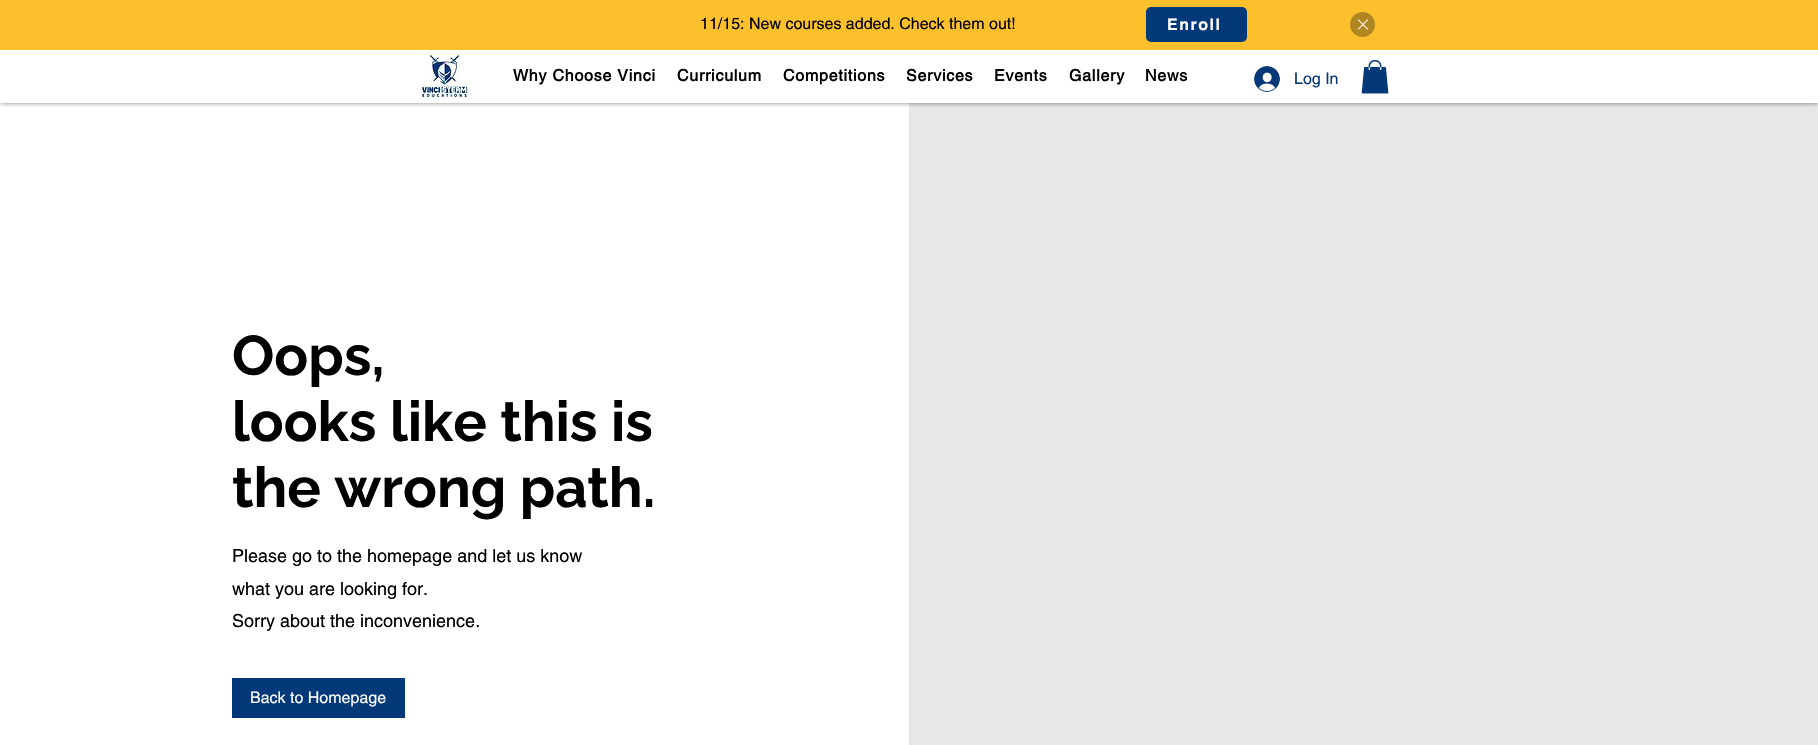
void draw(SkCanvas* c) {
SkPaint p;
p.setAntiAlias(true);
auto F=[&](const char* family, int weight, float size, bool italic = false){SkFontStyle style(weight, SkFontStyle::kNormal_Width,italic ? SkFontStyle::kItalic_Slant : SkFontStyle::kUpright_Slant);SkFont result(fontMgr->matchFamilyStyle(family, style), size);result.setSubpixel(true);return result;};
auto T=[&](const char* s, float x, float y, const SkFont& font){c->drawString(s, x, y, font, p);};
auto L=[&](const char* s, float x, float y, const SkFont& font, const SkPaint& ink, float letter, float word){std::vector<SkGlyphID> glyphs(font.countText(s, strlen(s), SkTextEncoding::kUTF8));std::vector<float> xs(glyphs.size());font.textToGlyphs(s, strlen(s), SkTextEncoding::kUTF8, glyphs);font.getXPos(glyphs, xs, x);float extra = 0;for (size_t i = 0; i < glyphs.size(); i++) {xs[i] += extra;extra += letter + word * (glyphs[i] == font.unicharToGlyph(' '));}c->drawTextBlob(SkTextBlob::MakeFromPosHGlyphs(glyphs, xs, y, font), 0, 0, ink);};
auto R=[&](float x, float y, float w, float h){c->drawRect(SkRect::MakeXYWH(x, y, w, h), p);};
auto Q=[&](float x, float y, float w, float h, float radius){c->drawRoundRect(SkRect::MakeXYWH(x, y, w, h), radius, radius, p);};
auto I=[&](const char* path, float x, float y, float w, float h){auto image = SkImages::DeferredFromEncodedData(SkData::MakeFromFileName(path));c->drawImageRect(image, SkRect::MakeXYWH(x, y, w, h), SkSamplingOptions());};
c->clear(0xffffffff);
p.setColor(0xffe8e6e6);
R(909,103,909,642);
c->save();
c->clipRect(SkRect::MakeXYWH(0,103,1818,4));
p.setColor(0x80000000);
p.setMaskFilter(SkMaskFilter::MakeBlur(kNormal_SkBlurStyle, 2.5));
c->drawRect(SkRect::MakeXYWH(0,0,1818,103),p);
p.setMaskFilter(nullptr);
c->restore();
p.setColor(0xfffcc02d);
R(0,0,1818,50);
auto f1 = F("helvetica",400,16);
p.setColor(0xff000000);
T("11/15: New courses added. Check them out!",700,29,f1);
p.setColor(0xff033879);
Q(1146,7,101,35,5);
auto f2 = F("helvetica",700,16);
p.setColor(0xffffffff);
L("Enroll",1167,30,f2,p,1.5,0);
p.setColor(0xffb08620);
c->drawCircle(1362.5,24.5,12.5,p);
I("1.png",1357,19,12,11);
I("2.png",419,50,51,49);
auto f3 = F("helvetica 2",700,16);
p.setColor(0xff000000);
L("Why Choose Vinci",513,81,f3,p,.75,0);
L("Curriculum",677,81,f3,p,.75,0);
L("Competitions",783,81,f3,p,.75,0);
L("Services",906,81,f3,p,.75,0);
L("Events",994,81,f3,p,.75,0);
L("Gallery",1069,81,f3,p,.75,0);
L("News",1145,81,f3,p,.75,0);
I("3.png",1254,66,26,26);
p.setColor(0xff033879);
T("Log In",1294,84,f1);
I("4.png",1361,60,28,34);
auto f4 = F("Raleway",700,56);
p.setColor(0xff000000);
T("Oops,",232,375,f4);
T("looks like this is",232,441,f4);
T("the wrong path.",232,507,f4);
auto f5 = F("helvetica",400,18);
T("Please go to the homepage and let us know",232,562,f5);
T("what you are looking for.",232,595,f5);
T("Sorry about the inconvenience.",232,627,f5);
p.setColor(0xff033879);
R(232,678,173,40);
p.setColor(0xffffffff);
T("Back to Homepage",250,703,f1);
}
